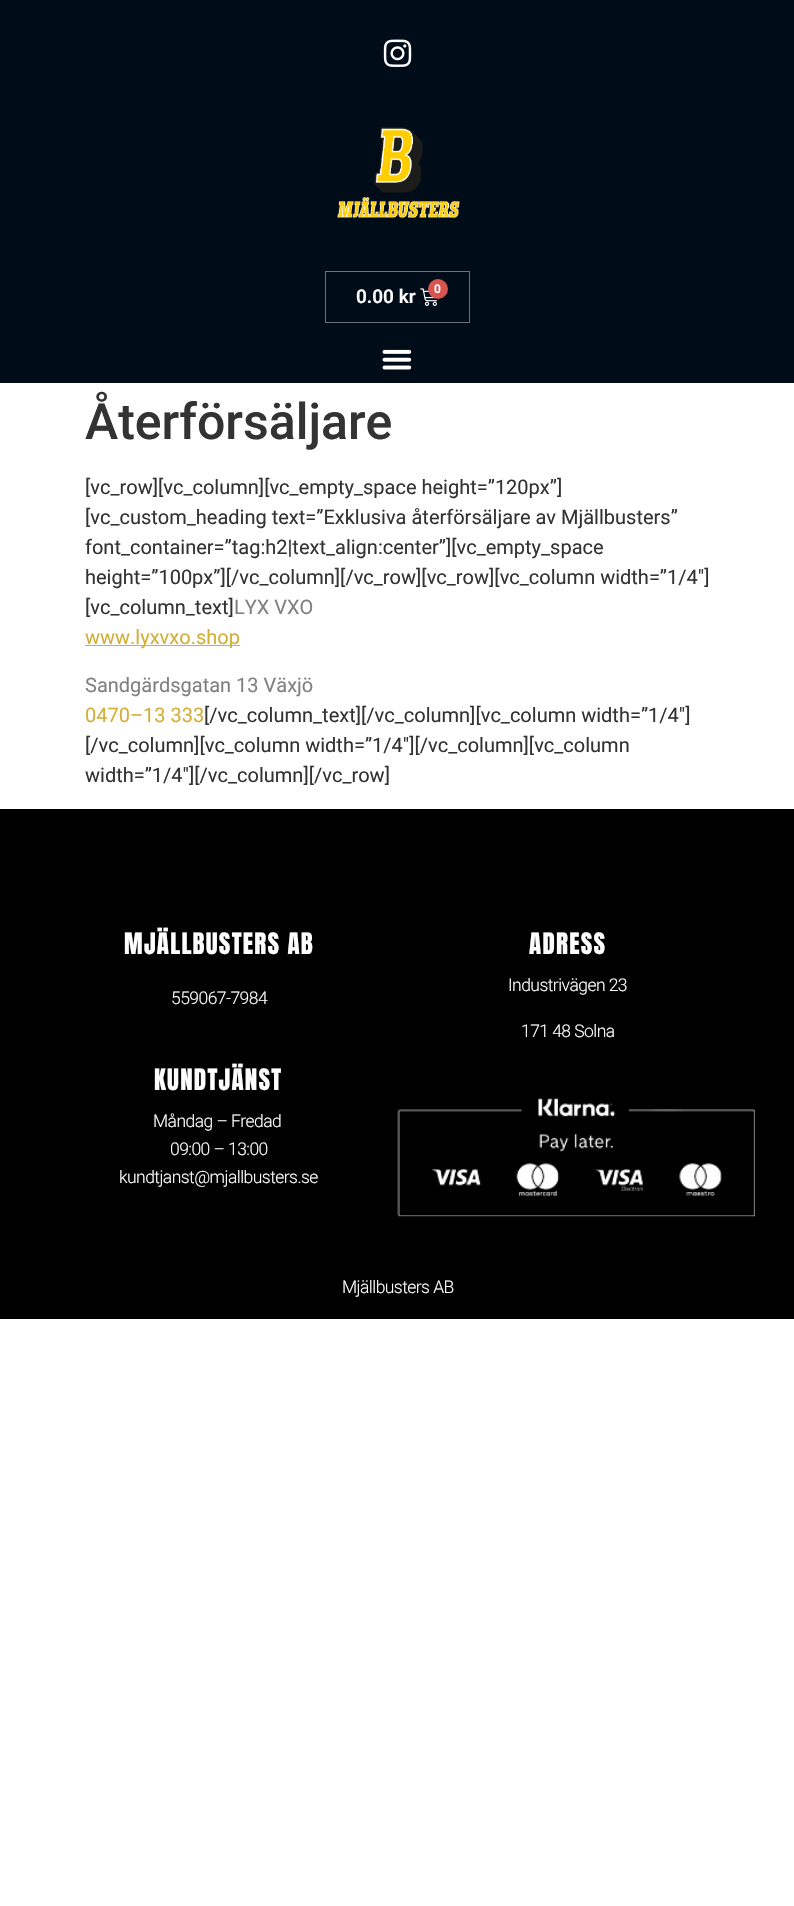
void draw(SkCanvas* c) {
SkPaint p;
p.setAntiAlias(true);
auto F=[&](const char* family, int weight, float size, bool italic = false){SkFontStyle style(weight, SkFontStyle::kNormal_Width,italic ? SkFontStyle::kItalic_Slant : SkFontStyle::kUpright_Slant);SkFont result(fontMgr->matchFamilyStyle(family, style), size);result.setSubpixel(true);return result;};
auto T=[&](const char* s, float x, float y, const SkFont& font){c->drawString(s, x, y, font, p);};
auto L=[&](const char* s, float x, float y, const SkFont& font, const SkPaint& ink, float letter, float word){std::vector<SkGlyphID> glyphs(font.countText(s, strlen(s), SkTextEncoding::kUTF8));std::vector<float> xs(glyphs.size());font.textToGlyphs(s, strlen(s), SkTextEncoding::kUTF8, glyphs);font.getXPos(glyphs, xs, x);float extra = 0;for (size_t i = 0; i < glyphs.size(); i++) {xs[i] += extra;extra += letter + word * (glyphs[i] == font.unicharToGlyph(' '));}c->drawTextBlob(SkTextBlob::MakeFromPosHGlyphs(glyphs, xs, y, font), 0, 0, ink);};
auto R=[&](float x, float y, float w, float h){c->drawRect(SkRect::MakeXYWH(x, y, w, h), p);};
auto I=[&](const char* path, float x, float y, float w, float h){auto image = SkImages::DeferredFromEncodedData(SkData::MakeFromFileName(path));c->drawImageRect(image, SkRect::MakeXYWH(x, y, w, h), SkSamplingOptions());};
c->clear(0xffffffff);
p.setColor(0xff010c19);
R(0,0,794,383);
I("1.png",383,39,29,28);
I("2.png",337,127,123,91);
p.setStroke(true);
p.setStrokeWidth(1);
p.setColor(0xff69727d);
c->drawRect(SkRect::MakeXYWH(325.5,271.5,144,51),p);
auto f1 = F("Roboto",600,19);
p.setStroke(false);
p.setColor(0xfffffefe);
T("0.00 kr",356,303,f1);
I("3.png",420,288,17,18);
p.setColor(0xffd9534f);
c->drawCircle(438,289,10,p);
auto f2 = F("Roboto",600,12);
p.setColor(0xfffffefe);
T("0",434,293,f2);
I("4.png",382,349,30,21);
auto f3 = F("Roboto",500,50);
p.setColor(0xff333333);
T("Återförsäljare",85,439,f3);
auto f4 = F("Roboto",400,20);
T("[vc_row][vc_column][vc_empty_space height=”120px”]",85,494,f4);
T("[vc_custom_heading text=”Exklusiva återförsäljare av Mjällbusters”",85,524,f4);
T("font_container=”tag:h2|text_align:center”][vc_empty_space",85,554,f4);
T("height=”100px”][/vc_column][/vc_row][vc_row][vc_column width=”1/4″]",85,584,f4);
T("[vc_column_text]",85,614,f4);
p.setColor(0xff808080);
T("LYX VXO",234,614,f4);
p.setColor(0xffd4af37);
R(85,645,155,1);
T("www.lyxvxo.shop",85,644,f4);
p.setColor(0xff808080);
T("Sandgärdsgatan 13 Växjö",85,692,f4);
p.setColor(0xffd4af37);
T("0470–13 333",85,722,f4);
p.setColor(0xff333333);
T("[/vc_column_text][/vc_column][vc_column width=”1/4″]",204,722,f4);
T("[/vc_column][vc_column width=”1/4″][/vc_column][vc_column",85,752,f4);
T("width=”1/4″][/vc_column][/vc_row]",85,782,f4);
p.setColor(0xff000000);
R(0,809,794,510);
auto f5 = F("Anton",400,25);
p.setColor(0xfffffefe);
L("MJÄLLBUSTERS AB",124,954,f5,p,1.25,0);
auto f6 = F("Roboto",300,17.5);
L("559067-7984",171,1004,f6,p,-.55,0);
L("ADRESS",529,954,f5,p,1.25,0);
L("Industrivägen 23",508,991,f6,p,-.55,0);
L("171 48 Solna",521,1037,f6,p,-.55,0);
L("KUNDTJÄNST",154,1090,f5,p,1.25,0);
L("Måndag – Fredad",153,1127,f6,p,-.55,0);
L("09:00 – 13:00",170,1155,f6,p,-.55,0);
L("kundtjanst@mjallbusters.se",119,1183,f6,p,-.55,0);
I("5.png",397,1098,358,119);
L("Mjällbusters AB",342,1293,f6,p,-.55,0);
}
